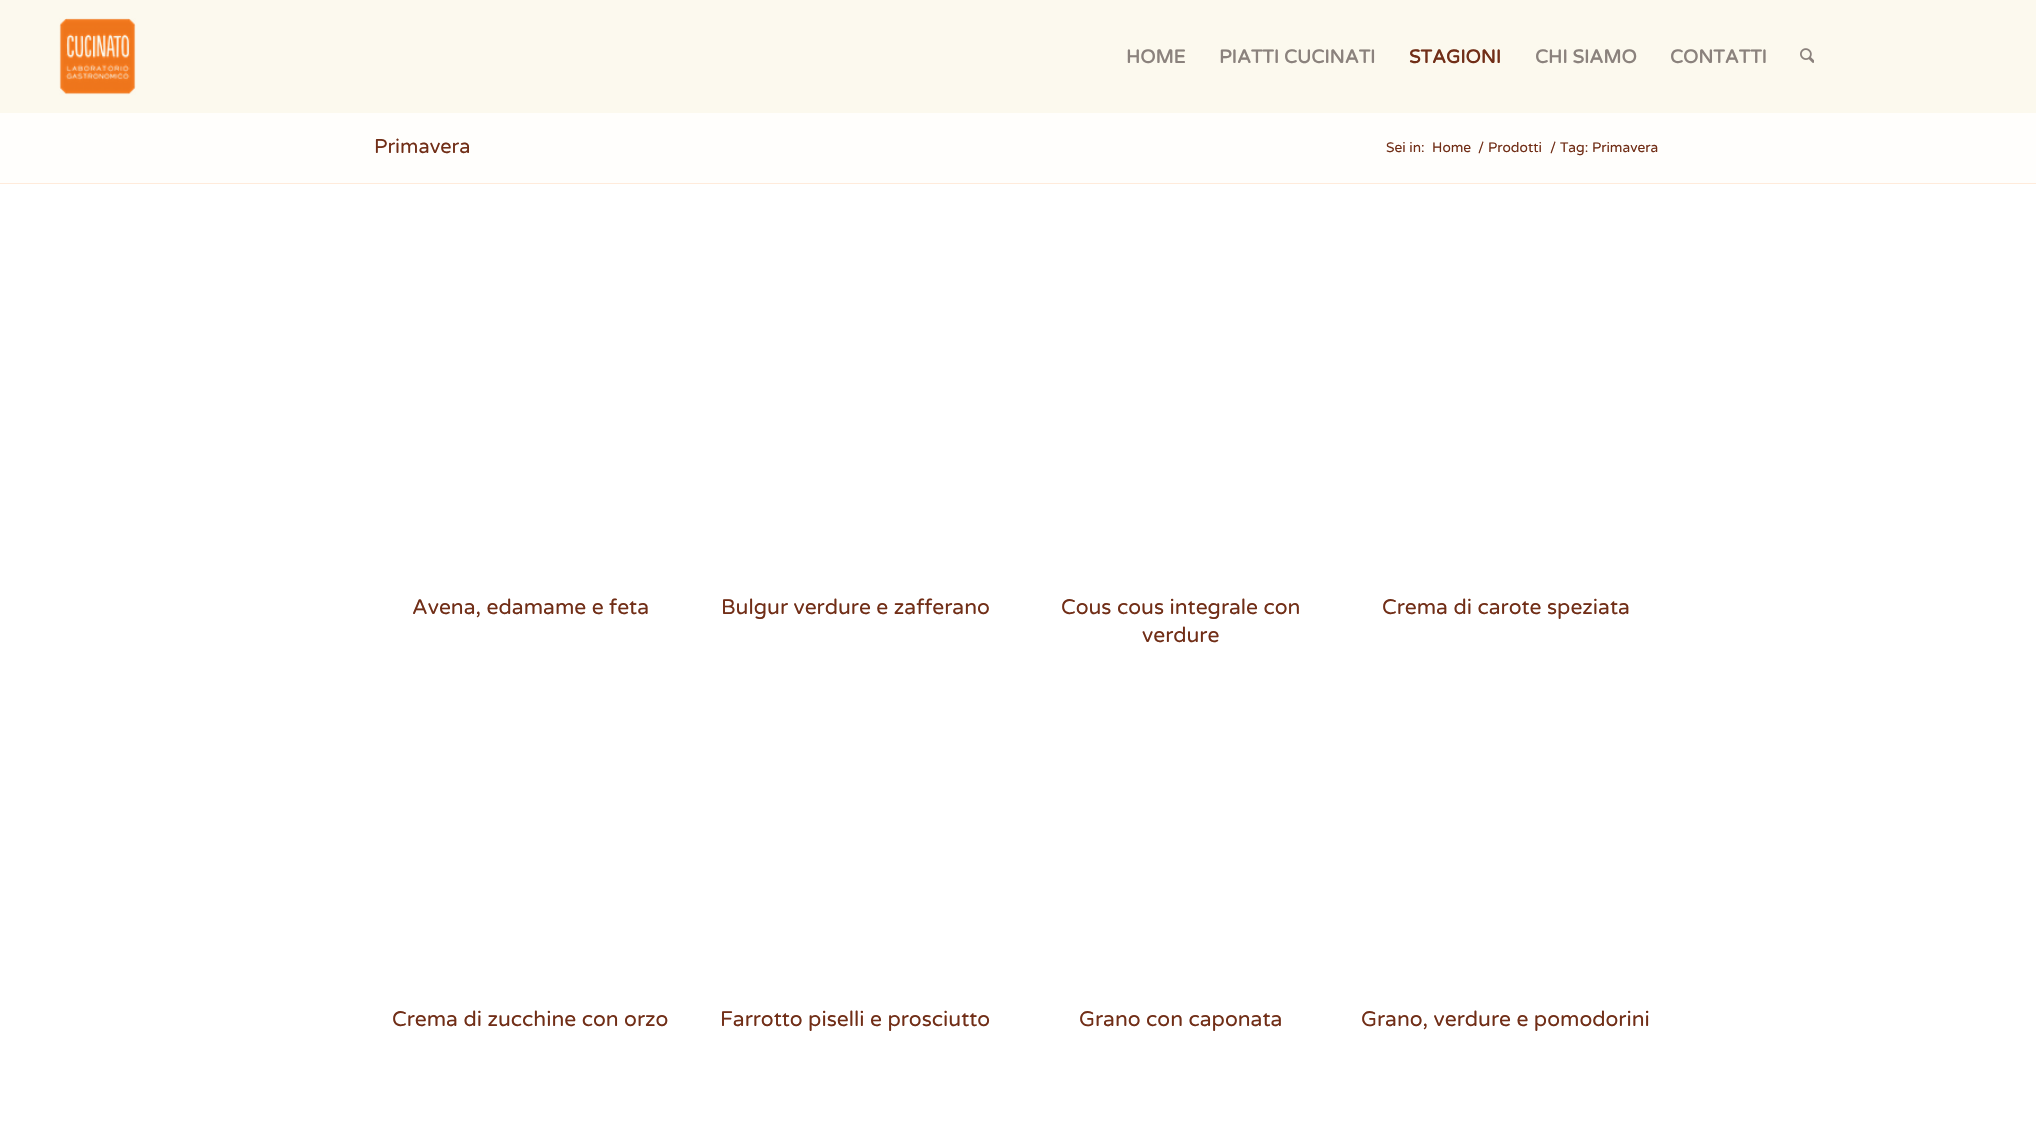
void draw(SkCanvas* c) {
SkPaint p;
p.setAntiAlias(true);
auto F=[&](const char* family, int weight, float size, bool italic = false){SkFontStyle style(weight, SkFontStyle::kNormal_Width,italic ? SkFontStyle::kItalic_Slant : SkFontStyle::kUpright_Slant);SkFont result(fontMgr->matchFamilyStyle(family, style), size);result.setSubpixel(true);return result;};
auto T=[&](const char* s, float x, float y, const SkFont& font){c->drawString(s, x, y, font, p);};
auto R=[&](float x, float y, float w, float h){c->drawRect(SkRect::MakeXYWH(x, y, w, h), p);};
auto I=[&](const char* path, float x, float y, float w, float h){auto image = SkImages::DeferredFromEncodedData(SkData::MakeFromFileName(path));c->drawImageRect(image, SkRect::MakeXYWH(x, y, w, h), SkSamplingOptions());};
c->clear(0xfffffefc);
p.setColor(0xfffcf9ee);
R(0,0,2036,113);
I("1.png",59,18,77,77);
auto f1 = F("Varela Round",700,18.75);
p.setColor(0xff8b827d);
T("HOME",1126,63,f1);
T("PIATTI CUCINATI",1219,63,f1);
p.setColor(0xff712e17);
T("STAGIONI",1409,63,f1);
p.setColor(0xff8b827d);
T("CHI SIAMO",1535,63,f1);
T("CONTATTI",1670,63,f1);
I("2.png",1800,48,14,15);
auto f2 = F("Varela Round",400,20);
p.setColor(0xff712e17);
T("Primavera",374,153,f2);
auto f3 = F("Varela Round",400,13.75);
T("Sei in:",1386,152,f3);
T("Home",1432,152,f3);
T("/",1478,152,f3);
T("Prodotti",1488,152,f3);
T("/",1550,152,f3);
T("Tag: Primavera",1560,152,f3);
p.setColor(0xffffffff);
R(0,184,2036,945);
p.setColor(0xffffebdb);
R(0,183,2036,1);
auto f4 = F("Varela Round",400,21.1);
p.setColor(0xff712e17);
T("Avena, edamame e feta",412,614,f4);
T("Bulgur verdure e zafferano",721,614,f4);
T("Cous cous integrale con",1061,614,f4);
T("verdure",1142,642,f4);
T("Crema di carote speziata",1382,614,f4);
T("Crema di zucchine con orzo",392,1026,f4);
T("Farrotto piselli e prosciutto",720,1026,f4);
T("Grano con caponata",1079,1026,f4);
T("Grano, verdure e pomodorini",1361,1026,f4);
}
